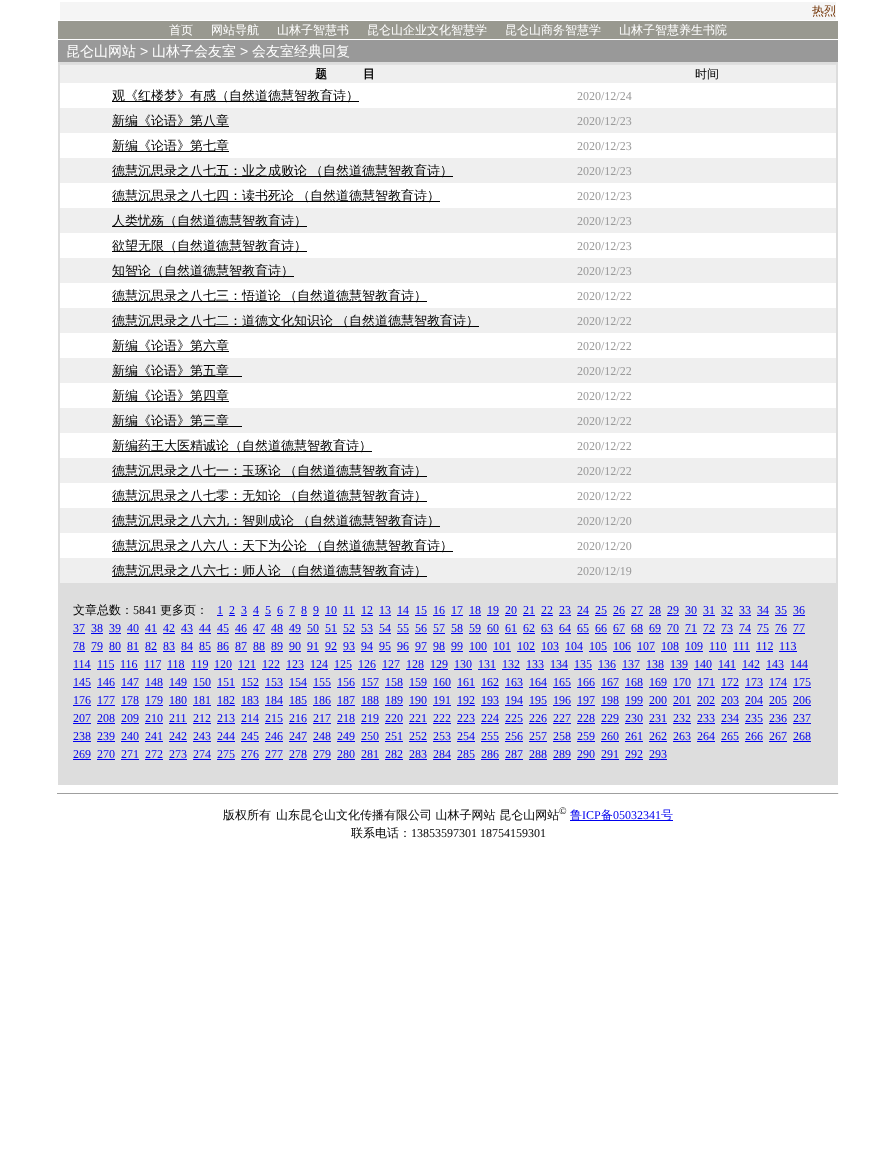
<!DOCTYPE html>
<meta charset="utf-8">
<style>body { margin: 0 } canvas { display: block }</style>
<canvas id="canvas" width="896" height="1163"></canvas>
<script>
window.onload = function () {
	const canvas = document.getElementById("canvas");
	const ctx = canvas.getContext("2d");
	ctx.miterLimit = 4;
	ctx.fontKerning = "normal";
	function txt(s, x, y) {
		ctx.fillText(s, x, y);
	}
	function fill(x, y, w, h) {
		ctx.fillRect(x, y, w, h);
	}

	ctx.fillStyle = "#FFFFFF";
	fill(0, 0, 896, 1163);
	ctx.fillStyle = "#F5F5F5";
	fill(60, 2, 776, 18);
	ctx.fillStyle = "#999990";
	fill(58, 21, 780, 18);
	ctx.fillStyle = "#999999";
	fill(58, 40, 780, 22);
	ctx.fillStyle = "#DDDDDD";
	fill(58, 62, 780, 723);
	ctx.fillStyle = "#EFEFEF";
	fill(60, 65, 776, 518);
	ctx.fillStyle = "#E0E0E0";
	fill(60, 64, 776, 1);
	ctx.fillStyle = "#FFFFFF";
	fill(60, 83, 776, 25);
	ctx.fillStyle = "#000000";
	fill(112, 101, 247, 1);
	fill(112, 126, 117, 1);
	ctx.fillStyle = "#FFFFFF";
	fill(60, 133, 776, 25);
	ctx.fillStyle = "#000000";
	fill(112, 151, 117, 1);
	fill(112, 176, 341, 1);
	ctx.fillStyle = "#FFFFFF";
	fill(60, 183, 776, 25);
	ctx.fillStyle = "#000000";
	fill(112, 201, 328, 1);
	fill(112, 226, 195, 1);
	ctx.fillStyle = "#FFFFFF";
	fill(60, 233, 776, 25);
	ctx.fillStyle = "#000000";
	fill(112, 251, 195, 1);
	fill(112, 276, 182, 1);
	ctx.fillStyle = "#FFFFFF";
	fill(60, 283, 776, 25);
	ctx.fillStyle = "#000000";
	fill(112, 301, 315, 1);
	fill(112, 326, 367, 1);
	ctx.fillStyle = "#FFFFFF";
	fill(60, 333, 776, 25);
	ctx.fillStyle = "#000000";
	fill(112, 351, 117, 1);
	fill(112, 376, 130, 1);
	ctx.fillStyle = "#FFFFFF";
	fill(60, 383, 776, 25);
	ctx.fillStyle = "#000000";
	fill(112, 401, 117, 1);
	fill(112, 426, 130, 1);
	ctx.fillStyle = "#FFFFFF";
	fill(60, 433, 776, 25);
	ctx.fillStyle = "#000000";
	fill(112, 451, 260, 1);
	fill(112, 476, 315, 1);
	ctx.fillStyle = "#FFFFFF";
	fill(60, 483, 776, 25);
	ctx.fillStyle = "#000000";
	fill(112, 501, 315, 1);
	fill(112, 526, 328, 1);
	ctx.fillStyle = "#FFFFFF";
	fill(60, 533, 776, 25);
	ctx.fillStyle = "#000000";
	fill(112, 551, 341, 1);
	fill(112, 576, 315, 1);
	ctx.fillStyle = "#0000EE";
	fill(217, 615, 6, 1);
	fill(229, 615, 6, 1);
	fill(241, 615, 6, 1);
	fill(253, 615, 6, 1);
	fill(265, 615, 6, 1);
	fill(277, 615, 6, 1);
	fill(289, 615, 6, 1);
	fill(301, 615, 6, 1);
	fill(313, 615, 6, 1);
	fill(325, 615, 12, 1);
	fill(343, 615, 12, 1);
	fill(361, 615, 12, 1);
	fill(379, 615, 12, 1);
	fill(397, 615, 12, 1);
	fill(415, 615, 12, 1);
	fill(433, 615, 12, 1);
	fill(451, 615, 12, 1);
	fill(469, 615, 12, 1);
	fill(487, 615, 12, 1);
	fill(505, 615, 12, 1);
	fill(523, 615, 12, 1);
	fill(541, 615, 12, 1);
	fill(559, 615, 12, 1);
	fill(577, 615, 12, 1);
	fill(595, 615, 12, 1);
	fill(613, 615, 12, 1);
	fill(631, 615, 12, 1);
	fill(649, 615, 12, 1);
	fill(667, 615, 12, 1);
	fill(685, 615, 12, 1);
	fill(703, 615, 12, 1);
	fill(721, 615, 12, 1);
	fill(739, 615, 12, 1);
	fill(757, 615, 12, 1);
	fill(775, 615, 12, 1);
	fill(793, 615, 12, 1);
	fill(73, 633, 12, 1);
	fill(91, 633, 12, 1);
	fill(109, 633, 12, 1);
	fill(127, 633, 12, 1);
	fill(145, 633, 12, 1);
	fill(163, 633, 12, 1);
	fill(181, 633, 12, 1);
	fill(199, 633, 12, 1);
	fill(217, 633, 12, 1);
	fill(235, 633, 12, 1);
	fill(253, 633, 12, 1);
	fill(271, 633, 12, 1);
	fill(289, 633, 12, 1);
	fill(307, 633, 12, 1);
	fill(325, 633, 12, 1);
	fill(343, 633, 12, 1);
	fill(361, 633, 12, 1);
	fill(379, 633, 12, 1);
	fill(397, 633, 12, 1);
	fill(415, 633, 12, 1);
	fill(433, 633, 12, 1);
	fill(451, 633, 12, 1);
	fill(469, 633, 12, 1);
	fill(487, 633, 12, 1);
	fill(505, 633, 12, 1);
	fill(523, 633, 12, 1);
	fill(541, 633, 12, 1);
	fill(559, 633, 12, 1);
	fill(577, 633, 12, 1);
	fill(595, 633, 12, 1);
	fill(613, 633, 12, 1);
	fill(631, 633, 12, 1);
	fill(649, 633, 12, 1);
	fill(667, 633, 12, 1);
	fill(685, 633, 12, 1);
	fill(703, 633, 12, 1);
	fill(721, 633, 12, 1);
	fill(739, 633, 12, 1);
	fill(757, 633, 12, 1);
	fill(775, 633, 12, 1);
	fill(793, 633, 12, 1);
	fill(73, 651, 12, 1);
	fill(91, 651, 12, 1);
	fill(109, 651, 12, 1);
	fill(127, 651, 12, 1);
	fill(145, 651, 12, 1);
	fill(163, 651, 12, 1);
	fill(181, 651, 12, 1);
	fill(199, 651, 12, 1);
	fill(217, 651, 12, 1);
	fill(235, 651, 12, 1);
	fill(253, 651, 12, 1);
	fill(271, 651, 12, 1);
	fill(289, 651, 12, 1);
	fill(307, 651, 12, 1);
	fill(325, 651, 12, 1);
	fill(343, 651, 12, 1);
	fill(361, 651, 12, 1);
	fill(379, 651, 12, 1);
	fill(397, 651, 12, 1);
	fill(415, 651, 12, 1);
	fill(433, 651, 12, 1);
	fill(451, 651, 12, 1);
	fill(469, 651, 18, 1);
	fill(493, 651, 18, 1);
	fill(517, 651, 18, 1);
	fill(541, 651, 18, 1);
	fill(565, 651, 18, 1);
	fill(589, 651, 18, 1);
	fill(613, 651, 18, 1);
	fill(637, 651, 18, 1);
	fill(661, 651, 18, 1);
	fill(685, 651, 18, 1);
	fill(709, 651, 18, 1);
	fill(733, 651, 17, 1);
	fill(756, 651, 17, 1);
	fill(779, 651, 18, 1);
	fill(73, 669, 18, 1);
	fill(97, 669, 17, 1);
	fill(120, 669, 18, 1);
	fill(144, 669, 17, 1);
	fill(167, 669, 18, 1);
	fill(191, 669, 17, 1);
	fill(214, 669, 18, 1);
	fill(238, 669, 18, 1);
	fill(262, 669, 18, 1);
	fill(286, 669, 18, 1);
	fill(310, 669, 18, 1);
	fill(334, 669, 18, 1);
	fill(358, 669, 18, 1);
	fill(382, 669, 18, 1);
	fill(406, 669, 18, 1);
	fill(430, 669, 18, 1);
	fill(454, 669, 18, 1);
	fill(478, 669, 18, 1);
	fill(502, 669, 18, 1);
	fill(526, 669, 18, 1);
	fill(550, 669, 18, 1);
	fill(574, 669, 18, 1);
	fill(598, 669, 18, 1);
	fill(622, 669, 18, 1);
	fill(646, 669, 18, 1);
	fill(670, 669, 18, 1);
	fill(694, 669, 18, 1);
	fill(718, 669, 18, 1);
	fill(742, 669, 18, 1);
	fill(766, 669, 18, 1);
	fill(790, 669, 18, 1);
	fill(73, 687, 18, 1);
	fill(97, 687, 18, 1);
	fill(121, 687, 18, 1);
	fill(145, 687, 18, 1);
	fill(169, 687, 18, 1);
	fill(193, 687, 18, 1);
	fill(217, 687, 18, 1);
	fill(241, 687, 18, 1);
	fill(265, 687, 18, 1);
	fill(289, 687, 18, 1);
	fill(313, 687, 18, 1);
	fill(337, 687, 18, 1);
	fill(361, 687, 18, 1);
	fill(385, 687, 18, 1);
	fill(409, 687, 18, 1);
	fill(433, 687, 18, 1);
	fill(457, 687, 18, 1);
	fill(481, 687, 18, 1);
	fill(505, 687, 18, 1);
	fill(529, 687, 18, 1);
	fill(553, 687, 18, 1);
	fill(577, 687, 18, 1);
	fill(601, 687, 18, 1);
	fill(625, 687, 18, 1);
	fill(649, 687, 18, 1);
	fill(673, 687, 18, 1);
	fill(697, 687, 18, 1);
	fill(721, 687, 18, 1);
	fill(745, 687, 18, 1);
	fill(769, 687, 18, 1);
	fill(793, 687, 18, 1);
	fill(73, 705, 18, 1);
	fill(97, 705, 18, 1);
	fill(121, 705, 18, 1);
	fill(145, 705, 18, 1);
	fill(169, 705, 18, 1);
	fill(193, 705, 18, 1);
	fill(217, 705, 18, 1);
	fill(241, 705, 18, 1);
	fill(265, 705, 18, 1);
	fill(289, 705, 18, 1);
	fill(313, 705, 18, 1);
	fill(337, 705, 18, 1);
	fill(361, 705, 18, 1);
	fill(385, 705, 18, 1);
	fill(409, 705, 18, 1);
	fill(433, 705, 18, 1);
	fill(457, 705, 18, 1);
	fill(481, 705, 18, 1);
	fill(505, 705, 18, 1);
	fill(529, 705, 18, 1);
	fill(553, 705, 18, 1);
	fill(577, 705, 18, 1);
	fill(601, 705, 18, 1);
	fill(625, 705, 18, 1);
	fill(649, 705, 18, 1);
	fill(673, 705, 18, 1);
	fill(697, 705, 18, 1);
	fill(721, 705, 18, 1);
	fill(745, 705, 18, 1);
	fill(769, 705, 18, 1);
	fill(793, 705, 18, 1);
	fill(73, 723, 18, 1);
	fill(97, 723, 18, 1);
	fill(121, 723, 18, 1);
	fill(145, 723, 18, 1);
	fill(169, 723, 18, 1);
	fill(193, 723, 18, 1);
	fill(217, 723, 18, 1);
	fill(241, 723, 18, 1);
	fill(265, 723, 18, 1);
	fill(289, 723, 18, 1);
	fill(313, 723, 18, 1);
	fill(337, 723, 18, 1);
	fill(361, 723, 18, 1);
	fill(385, 723, 18, 1);
	fill(409, 723, 18, 1);
	fill(433, 723, 18, 1);
	fill(457, 723, 18, 1);
	fill(481, 723, 18, 1);
	fill(505, 723, 18, 1);
	fill(529, 723, 18, 1);
	fill(553, 723, 18, 1);
	fill(577, 723, 18, 1);
	fill(601, 723, 18, 1);
	fill(625, 723, 18, 1);
	fill(649, 723, 18, 1);
	fill(673, 723, 18, 1);
	fill(697, 723, 18, 1);
	fill(721, 723, 18, 1);
	fill(745, 723, 18, 1);
	fill(769, 723, 18, 1);
	fill(793, 723, 18, 1);
	fill(73, 741, 18, 1);
	fill(97, 741, 18, 1);
	fill(121, 741, 18, 1);
	fill(145, 741, 18, 1);
	fill(169, 741, 18, 1);
	fill(193, 741, 18, 1);
	fill(217, 741, 18, 1);
	fill(241, 741, 18, 1);
	fill(265, 741, 18, 1);
	fill(289, 741, 18, 1);
	fill(313, 741, 18, 1);
	fill(337, 741, 18, 1);
	fill(361, 741, 18, 1);
	fill(385, 741, 18, 1);
	fill(409, 741, 18, 1);
	fill(433, 741, 18, 1);
	fill(457, 741, 18, 1);
	fill(481, 741, 18, 1);
	fill(505, 741, 18, 1);
	fill(529, 741, 18, 1);
	fill(553, 741, 18, 1);
	fill(577, 741, 18, 1);
	fill(601, 741, 18, 1);
	fill(625, 741, 18, 1);
	fill(649, 741, 18, 1);
	fill(673, 741, 18, 1);
	fill(697, 741, 18, 1);
	fill(721, 741, 18, 1);
	fill(745, 741, 18, 1);
	fill(769, 741, 18, 1);
	fill(793, 741, 18, 1);
	fill(73, 759, 18, 1);
	fill(97, 759, 18, 1);
	fill(121, 759, 18, 1);
	fill(145, 759, 18, 1);
	fill(169, 759, 18, 1);
	fill(193, 759, 18, 1);
	fill(217, 759, 18, 1);
	fill(241, 759, 18, 1);
	fill(265, 759, 18, 1);
	fill(289, 759, 18, 1);
	fill(313, 759, 18, 1);
	fill(337, 759, 18, 1);
	fill(361, 759, 18, 1);
	fill(385, 759, 18, 1);
	fill(409, 759, 18, 1);
	fill(433, 759, 18, 1);
	fill(457, 759, 18, 1);
	fill(481, 759, 18, 1);
	fill(505, 759, 18, 1);
	fill(529, 759, 18, 1);
	fill(553, 759, 18, 1);
	fill(577, 759, 18, 1);
	fill(601, 759, 18, 1);
	fill(625, 759, 18, 1);
	fill(649, 759, 18, 1);
	ctx.fillStyle = "#9F9F9F";
	fill(57, 793, 782, 1);
	ctx.fillStyle = "#EEEEEE";
	fill(838, 793, 1, 1);
	ctx.fillStyle = "#0000EE";
	fill(570, 820, 103, 1);
	ctx.font = "500 12px WenQuanYi Zen Hei";
	ctx.fillStyle = "#703000";
	txt("热烈", 812, 15);
	ctx.fillStyle = "#FFFFFF";
	txt("首页", 169, 34);
	txt("网站导航", 211, 34);
	txt("山林子智慧书", 277, 34);
	txt("昆仑山企业文化智慧学", 367, 34);
	txt("昆仑山商务智慧学", 505, 34);
	txt("山林子智慧养生书院", 619, 34);
	ctx.font = "500 14px WenQuanYi Zen Hei";
	txt("昆仑山网站", 66, 56);
	ctx.font = "14px Liberation Sans";
	txt(">", 140, 56);
	ctx.font = "500 14px WenQuanYi Zen Hei";
	txt("山林子会友室", 152, 56);
	ctx.font = "14px Liberation Sans";
	txt(">", 240, 56);
	ctx.font = "500 14px WenQuanYi Zen Hei";
	txt("会友室经典回复", 252, 56);
	ctx.font = "bold 12px WenQuanYi Zen Hei";
	ctx.fillStyle = "#000000";
	txt("题　　　目", 315, 78);
	ctx.font = "500 12px WenQuanYi Zen Hei";
	txt("时间", 695, 78);
	ctx.font = "500 13px WenQuanYi Zen Hei";
	txt("观《红楼梦》有感（自然道德慧智教育诗）", 112, 100);
	ctx.font = "12px Liberation Serif";
	ctx.fillStyle = "#999999";
	txt("2020/12/24", 577, 100);
	ctx.font = "500 13px WenQuanYi Zen Hei";
	ctx.fillStyle = "#000000";
	txt("新编《论语》第八章", 112, 125);
	ctx.font = "12px Liberation Serif";
	ctx.fillStyle = "#999999";
	txt("2020/12/23", 577, 125);
	ctx.font = "500 13px WenQuanYi Zen Hei";
	ctx.fillStyle = "#000000";
	txt("新编《论语》第七章", 112, 150);
	ctx.font = "12px Liberation Serif";
	ctx.fillStyle = "#999999";
	txt("2020/12/23", 577, 150);
	ctx.font = "500 13px WenQuanYi Zen Hei";
	ctx.fillStyle = "#000000";
	txt("德慧沉思录之八七五：业之成败论", 112, 175);
	txt("（自然道德慧智教育诗）", 310, 175);
	ctx.font = "12px Liberation Serif";
	ctx.fillStyle = "#999999";
	txt("2020/12/23", 577, 175);
	ctx.font = "500 13px WenQuanYi Zen Hei";
	ctx.fillStyle = "#000000";
	txt("德慧沉思录之八七四：读书死论", 112, 200);
	txt("（自然道德慧智教育诗）", 297, 200);
	ctx.font = "12px Liberation Serif";
	ctx.fillStyle = "#999999";
	txt("2020/12/23", 577, 200);
	ctx.font = "500 13px WenQuanYi Zen Hei";
	ctx.fillStyle = "#000000";
	txt("人类忧殇（自然道德慧智教育诗）", 112, 225);
	ctx.font = "12px Liberation Serif";
	ctx.fillStyle = "#999999";
	txt("2020/12/23", 577, 225);
	ctx.font = "500 13px WenQuanYi Zen Hei";
	ctx.fillStyle = "#000000";
	txt("欲望无限（自然道德慧智教育诗）", 112, 250);
	ctx.font = "12px Liberation Serif";
	ctx.fillStyle = "#999999";
	txt("2020/12/23", 577, 250);
	ctx.font = "500 13px WenQuanYi Zen Hei";
	ctx.fillStyle = "#000000";
	txt("知智论（自然道德慧智教育诗）", 112, 275);
	ctx.font = "12px Liberation Serif";
	ctx.fillStyle = "#999999";
	txt("2020/12/23", 577, 275);
	ctx.font = "500 13px WenQuanYi Zen Hei";
	ctx.fillStyle = "#000000";
	txt("德慧沉思录之八七三：悟道论", 112, 300);
	txt("（自然道德慧智教育诗）", 284, 300);
	ctx.font = "12px Liberation Serif";
	ctx.fillStyle = "#999999";
	txt("2020/12/22", 577, 300);
	ctx.font = "500 13px WenQuanYi Zen Hei";
	ctx.fillStyle = "#000000";
	txt("德慧沉思录之八七二：道德文化知识论", 112, 325);
	txt("（自然道德慧智教育诗）", 336, 325);
	ctx.font = "12px Liberation Serif";
	ctx.fillStyle = "#999999";
	txt("2020/12/22", 577, 325);
	ctx.font = "500 13px WenQuanYi Zen Hei";
	ctx.fillStyle = "#000000";
	txt("新编《论语》第六章", 112, 350);
	ctx.font = "12px Liberation Serif";
	ctx.fillStyle = "#999999";
	txt("2020/12/22", 577, 350);
	ctx.font = "500 13px WenQuanYi Zen Hei";
	ctx.fillStyle = "#000000";
	txt("新编《论语》第五章", 112, 375);
	ctx.font = "12px Liberation Serif";
	ctx.fillStyle = "#999999";
	txt("2020/12/22", 577, 375);
	ctx.font = "500 13px WenQuanYi Zen Hei";
	ctx.fillStyle = "#000000";
	txt("新编《论语》第四章", 112, 400);
	ctx.font = "12px Liberation Serif";
	ctx.fillStyle = "#999999";
	txt("2020/12/22", 577, 400);
	ctx.font = "500 13px WenQuanYi Zen Hei";
	ctx.fillStyle = "#000000";
	txt("新编《论语》第三章", 112, 425);
	ctx.font = "12px Liberation Serif";
	ctx.fillStyle = "#999999";
	txt("2020/12/22", 577, 425);
	ctx.font = "500 13px WenQuanYi Zen Hei";
	ctx.fillStyle = "#000000";
	txt("新编药王大医精诚论（自然道德慧智教育诗）", 112, 450);
	ctx.font = "12px Liberation Serif";
	ctx.fillStyle = "#999999";
	txt("2020/12/22", 577, 450);
	ctx.font = "500 13px WenQuanYi Zen Hei";
	ctx.fillStyle = "#000000";
	txt("德慧沉思录之八七一：玉琢论", 112, 475);
	txt("（自然道德慧智教育诗）", 284, 475);
	ctx.font = "12px Liberation Serif";
	ctx.fillStyle = "#999999";
	txt("2020/12/22", 577, 475);
	ctx.font = "500 13px WenQuanYi Zen Hei";
	ctx.fillStyle = "#000000";
	txt("德慧沉思录之八七零：无知论", 112, 500);
	txt("（自然道德慧智教育诗）", 284, 500);
	ctx.font = "12px Liberation Serif";
	ctx.fillStyle = "#999999";
	txt("2020/12/22", 577, 500);
	ctx.font = "500 13px WenQuanYi Zen Hei";
	ctx.fillStyle = "#000000";
	txt("德慧沉思录之八六九：智则成论", 112, 525);
	txt("（自然道德慧智教育诗）", 297, 525);
	ctx.font = "12px Liberation Serif";
	ctx.fillStyle = "#999999";
	txt("2020/12/20", 577, 525);
	ctx.font = "500 13px WenQuanYi Zen Hei";
	ctx.fillStyle = "#000000";
	txt("德慧沉思录之八六八：天下为公论", 112, 550);
	txt("（自然道德慧智教育诗）", 310, 550);
	ctx.font = "12px Liberation Serif";
	ctx.fillStyle = "#999999";
	txt("2020/12/20", 577, 550);
	ctx.font = "500 13px WenQuanYi Zen Hei";
	ctx.fillStyle = "#000000";
	txt("德慧沉思录之八六七：师人论", 112, 575);
	txt("（自然道德慧智教育诗）", 284, 575);
	ctx.font = "12px Liberation Serif";
	ctx.fillStyle = "#999999";
	txt("2020/12/19", 577, 575);
	ctx.font = "500 12px WenQuanYi Zen Hei";
	ctx.fillStyle = "#000000";
	txt("文章总数：", 73, 614);
	ctx.font = "12px Liberation Serif";
	txt("5841", 133, 614);
	ctx.font = "500 12px WenQuanYi Zen Hei";
	txt("更多页：", 160, 614);
	ctx.font = "12px Liberation Serif";
	ctx.fillStyle = "#0000EE";
	txt("1", 217, 614);
	txt("2", 229, 614);
	txt("3", 241, 614);
	txt("4", 253, 614);
	txt("5", 265, 614);
	txt("6", 277, 614);
	txt("7", 289, 614);
	txt("8", 301, 614);
	txt("9", 313, 614);
	txt("10", 325, 614);
	txt("11", 343, 614);
	txt("12", 361, 614);
	txt("13", 379, 614);
	txt("14", 397, 614);
	txt("15", 415, 614);
	txt("16", 433, 614);
	txt("17", 451, 614);
	txt("18", 469, 614);
	txt("19", 487, 614);
	txt("20", 505, 614);
	txt("21", 523, 614);
	txt("22", 541, 614);
	txt("23", 559, 614);
	txt("24", 577, 614);
	txt("25", 595, 614);
	txt("26", 613, 614);
	txt("27", 631, 614);
	txt("28", 649, 614);
	txt("29", 667, 614);
	txt("30", 685, 614);
	txt("31", 703, 614);
	txt("32", 721, 614);
	txt("33", 739, 614);
	txt("34", 757, 614);
	txt("35", 775, 614);
	txt("36", 793, 614);
	txt("37", 73, 632);
	txt("38", 91, 632);
	txt("39", 109, 632);
	txt("40", 127, 632);
	txt("41", 145, 632);
	txt("42", 163, 632);
	txt("43", 181, 632);
	txt("44", 199, 632);
	txt("45", 217, 632);
	txt("46", 235, 632);
	txt("47", 253, 632);
	txt("48", 271, 632);
	txt("49", 289, 632);
	txt("50", 307, 632);
	txt("51", 325, 632);
	txt("52", 343, 632);
	txt("53", 361, 632);
	txt("54", 379, 632);
	txt("55", 397, 632);
	txt("56", 415, 632);
	txt("57", 433, 632);
	txt("58", 451, 632);
	txt("59", 469, 632);
	txt("60", 487, 632);
	txt("61", 505, 632);
	txt("62", 523, 632);
	txt("63", 541, 632);
	txt("64", 559, 632);
	txt("65", 577, 632);
	txt("66", 595, 632);
	txt("67", 613, 632);
	txt("68", 631, 632);
	txt("69", 649, 632);
	txt("70", 667, 632);
	txt("71", 685, 632);
	txt("72", 703, 632);
	txt("73", 721, 632);
	txt("74", 739, 632);
	txt("75", 757, 632);
	txt("76", 775, 632);
	txt("77", 793, 632);
	txt("78", 73, 650);
	txt("79", 91, 650);
	txt("80", 109, 650);
	txt("81", 127, 650);
	txt("82", 145, 650);
	txt("83", 163, 650);
	txt("84", 181, 650);
	txt("85", 199, 650);
	txt("86", 217, 650);
	txt("87", 235, 650);
	txt("88", 253, 650);
	txt("89", 271, 650);
	txt("90", 289, 650);
	txt("91", 307, 650);
	txt("92", 325, 650);
	txt("93", 343, 650);
	txt("94", 361, 650);
	txt("95", 379, 650);
	txt("96", 397, 650);
	txt("97", 415, 650);
	txt("98", 433, 650);
	txt("99", 451, 650);
	txt("100", 469, 650);
	txt("101", 493, 650);
	txt("102", 517, 650);
	txt("103", 541, 650);
	txt("104", 565, 650);
	txt("105", 589, 650);
	txt("106", 613, 650);
	txt("107", 637, 650);
	txt("108", 661, 650);
	txt("109", 685, 650);
	txt("110", 709, 650);
	txt("111", 733, 650);
	txt("112", 756, 650);
	txt("113", 779, 650);
	txt("114", 73, 668);
	txt("115", 97, 668);
	txt("116", 120, 668);
	txt("117", 144, 668);
	txt("118", 167, 668);
	txt("119", 191, 668);
	txt("120", 214, 668);
	txt("121", 238, 668);
	txt("122", 262, 668);
	txt("123", 286, 668);
	txt("124", 310, 668);
	txt("125", 334, 668);
	txt("126", 358, 668);
	txt("127", 382, 668);
	txt("128", 406, 668);
	txt("129", 430, 668);
	txt("130", 454, 668);
	txt("131", 478, 668);
	txt("132", 502, 668);
	txt("133", 526, 668);
	txt("134", 550, 668);
	txt("135", 574, 668);
	txt("136", 598, 668);
	txt("137", 622, 668);
	txt("138", 646, 668);
	txt("139", 670, 668);
	txt("140", 694, 668);
	txt("141", 718, 668);
	txt("142", 742, 668);
	txt("143", 766, 668);
	txt("144", 790, 668);
	txt("145", 73, 686);
	txt("146", 97, 686);
	txt("147", 121, 686);
	txt("148", 145, 686);
	txt("149", 169, 686);
	txt("150", 193, 686);
	txt("151", 217, 686);
	txt("152", 241, 686);
	txt("153", 265, 686);
	txt("154", 289, 686);
	txt("155", 313, 686);
	txt("156", 337, 686);
	txt("157", 361, 686);
	txt("158", 385, 686);
	txt("159", 409, 686);
	txt("160", 433, 686);
	txt("161", 457, 686);
	txt("162", 481, 686);
	txt("163", 505, 686);
	txt("164", 529, 686);
	txt("165", 553, 686);
	txt("166", 577, 686);
	txt("167", 601, 686);
	txt("168", 625, 686);
	txt("169", 649, 686);
	txt("170", 673, 686);
	txt("171", 697, 686);
	txt("172", 721, 686);
	txt("173", 745, 686);
	txt("174", 769, 686);
	txt("175", 793, 686);
	txt("176", 73, 704);
	txt("177", 97, 704);
	txt("178", 121, 704);
	txt("179", 145, 704);
	txt("180", 169, 704);
	txt("181", 193, 704);
	txt("182", 217, 704);
	txt("183", 241, 704);
	txt("184", 265, 704);
	txt("185", 289, 704);
	txt("186", 313, 704);
	txt("187", 337, 704);
	txt("188", 361, 704);
	txt("189", 385, 704);
	txt("190", 409, 704);
	txt("191", 433, 704);
	txt("192", 457, 704);
	txt("193", 481, 704);
	txt("194", 505, 704);
	txt("195", 529, 704);
	txt("196", 553, 704);
	txt("197", 577, 704);
	txt("198", 601, 704);
	txt("199", 625, 704);
	txt("200", 649, 704);
	txt("201", 673, 704);
	txt("202", 697, 704);
	txt("203", 721, 704);
	txt("204", 745, 704);
	txt("205", 769, 704);
	txt("206", 793, 704);
	txt("207", 73, 722);
	txt("208", 97, 722);
	txt("209", 121, 722);
	txt("210", 145, 722);
	txt("211", 169, 722);
	txt("212", 193, 722);
	txt("213", 217, 722);
	txt("214", 241, 722);
	txt("215", 265, 722);
	txt("216", 289, 722);
	txt("217", 313, 722);
	txt("218", 337, 722);
	txt("219", 361, 722);
	txt("220", 385, 722);
	txt("221", 409, 722);
	txt("222", 433, 722);
	txt("223", 457, 722);
	txt("224", 481, 722);
	txt("225", 505, 722);
	txt("226", 529, 722);
	txt("227", 553, 722);
	txt("228", 577, 722);
	txt("229", 601, 722);
	txt("230", 625, 722);
	txt("231", 649, 722);
	txt("232", 673, 722);
	txt("233", 697, 722);
	txt("234", 721, 722);
	txt("235", 745, 722);
	txt("236", 769, 722);
	txt("237", 793, 722);
	txt("238", 73, 740);
	txt("239", 97, 740);
	txt("240", 121, 740);
	txt("241", 145, 740);
	txt("242", 169, 740);
	txt("243", 193, 740);
	txt("244", 217, 740);
	txt("245", 241, 740);
	txt("246", 265, 740);
	txt("247", 289, 740);
	txt("248", 313, 740);
	txt("249", 337, 740);
	txt("250", 361, 740);
	txt("251", 385, 740);
	txt("252", 409, 740);
	txt("253", 433, 740);
	txt("254", 457, 740);
	txt("255", 481, 740);
	txt("256", 505, 740);
	txt("257", 529, 740);
	txt("258", 553, 740);
	txt("259", 577, 740);
	txt("260", 601, 740);
	txt("261", 625, 740);
	txt("262", 649, 740);
	txt("263", 673, 740);
	txt("264", 697, 740);
	txt("265", 721, 740);
	txt("266", 745, 740);
	txt("267", 769, 740);
	txt("268", 793, 740);
	txt("269", 73, 758);
	txt("270", 97, 758);
	txt("271", 121, 758);
	txt("272", 145, 758);
	txt("273", 169, 758);
	txt("274", 193, 758);
	txt("275", 217, 758);
	txt("276", 241, 758);
	txt("277", 265, 758);
	txt("278", 289, 758);
	txt("279", 313, 758);
	txt("280", 337, 758);
	txt("281", 361, 758);
	txt("282", 385, 758);
	txt("283", 409, 758);
	txt("284", 433, 758);
	txt("285", 457, 758);
	txt("286", 481, 758);
	txt("287", 505, 758);
	txt("288", 529, 758);
	txt("289", 553, 758);
	txt("290", 577, 758);
	txt("291", 601, 758);
	txt("292", 625, 758);
	txt("293", 649, 758);
	ctx.font = "500 12px WenQuanYi Zen Hei";
	ctx.fillStyle = "#000000";
	txt("版权所有", 223, 819);
	txt("山东昆仑山文化传播有限公司 山林子网站 昆仑山网站", 276, 819);
	ctx.font = "10px Liberation Serif";
	txt("©", 559, 814);
	ctx.font = "500 12px WenQuanYi Zen Hei";
	ctx.fillStyle = "#0000EE";
	txt("鲁", 570, 819);
	ctx.font = "12px Liberation Serif";
	txt("ICP", 582, 819);
	ctx.font = "500 12px WenQuanYi Zen Hei";
	txt("备", 601, 819);
	ctx.font = "12px Liberation Serif";
	txt("05032341", 613, 819);
	ctx.font = "500 12px WenQuanYi Zen Hei";
	txt("号", 661, 819);
	ctx.fillStyle = "#000000";
	txt("联系电话：", 351, 837);
	ctx.font = "12px Liberation Serif";
	txt("13853597301 18754159301", 411, 837);
};
</script>
